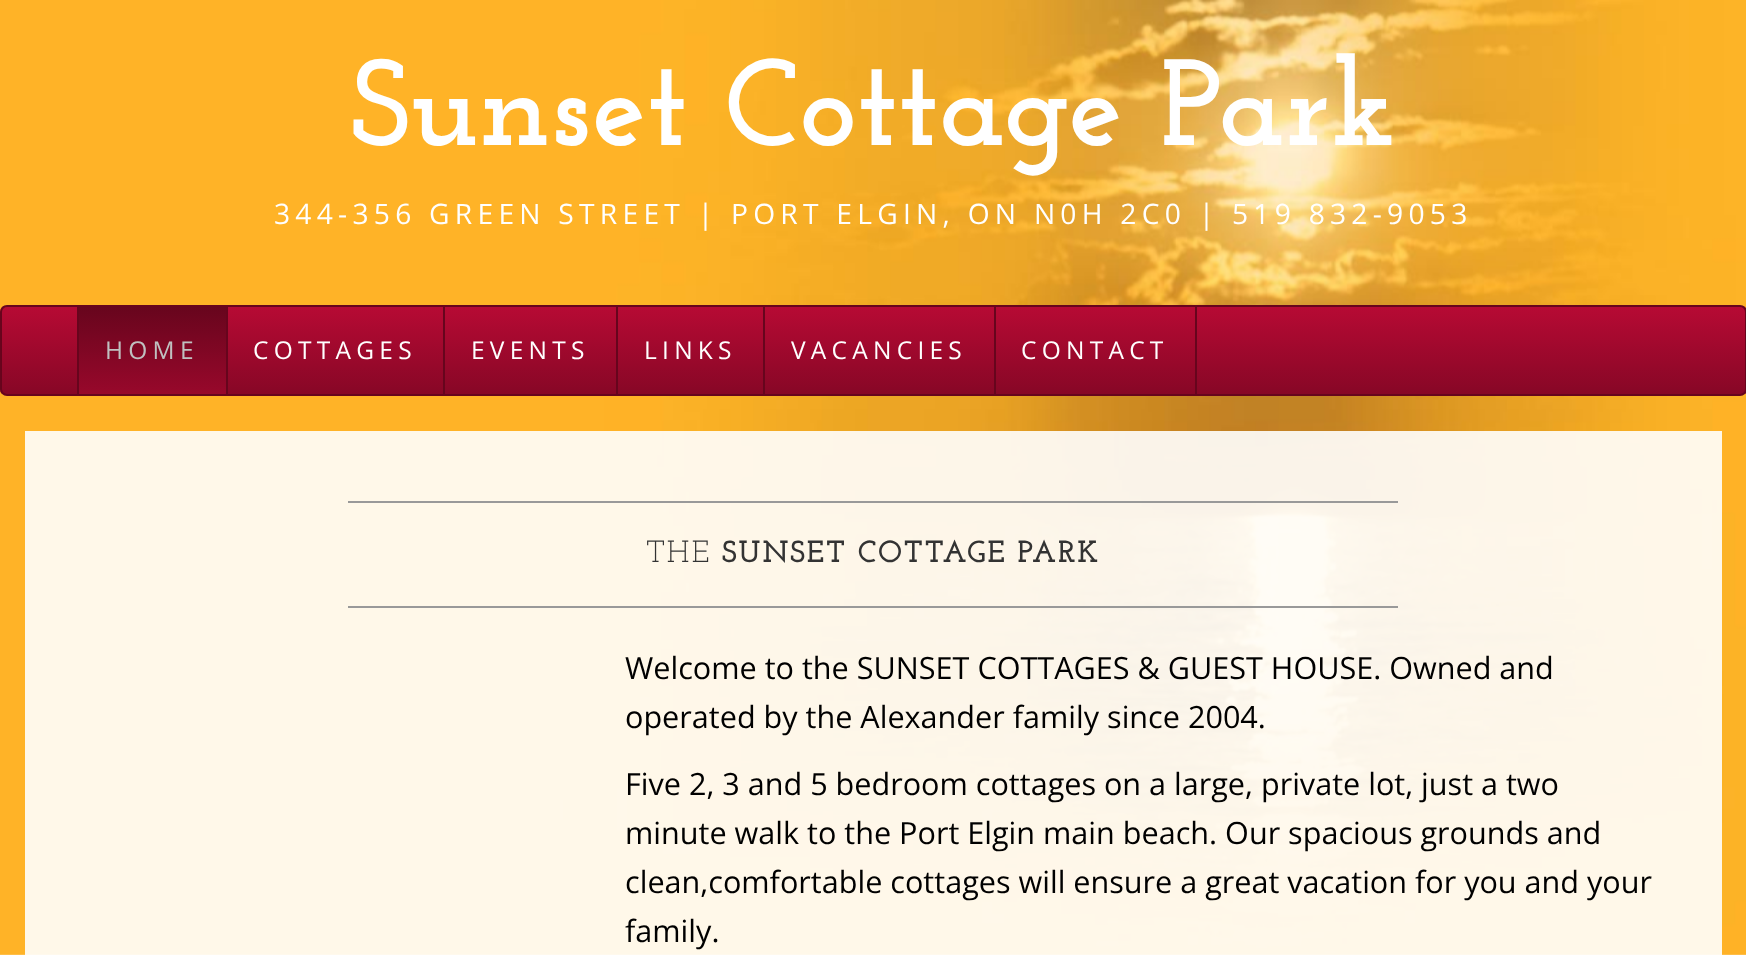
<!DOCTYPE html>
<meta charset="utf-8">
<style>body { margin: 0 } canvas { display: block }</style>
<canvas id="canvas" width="1746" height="955"></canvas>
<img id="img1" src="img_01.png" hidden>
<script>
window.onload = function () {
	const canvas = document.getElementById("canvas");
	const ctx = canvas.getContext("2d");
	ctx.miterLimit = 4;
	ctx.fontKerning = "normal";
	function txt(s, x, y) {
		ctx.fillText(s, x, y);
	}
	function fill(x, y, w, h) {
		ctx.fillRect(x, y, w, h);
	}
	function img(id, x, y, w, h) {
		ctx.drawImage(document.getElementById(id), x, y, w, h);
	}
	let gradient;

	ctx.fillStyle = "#FFFFFF";
	fill(0, 0, 1746, 955);
	img("img1", 0, 0, 1746, 955);
	ctx.save();
	ctx.beginPath();
	ctx.roundRect(0, 305, 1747, 91, 7);
	ctx.clip();
	gradient = ctx.createLinearGradient(873, 306, 873, 394);
	gradient.addColorStop(0, "#B70A34");
	gradient.addColorStop(1, "#870726");
	ctx.fillStyle = gradient;
	fill(0, 306, 1746, 88);
	ctx.restore();
	ctx.beginPath();
	ctx.roundRect(1, 306, 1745, 89, 6);
	ctx.strokeStyle = "#67051D";
	ctx.lineWidth = 2;
	ctx.stroke();
	gradient = ctx.createLinearGradient(152, 306, 152, 394);
	gradient.addColorStop(0, "#67051D");
	gradient.addColorStop(1, "#98082B");
	ctx.fillStyle = gradient;
	fill(79, 307, 147, 87);
	ctx.fillStyle = "#67051D";
	fill(77, 306, 2, 88);
	fill(226, 306, 2, 88);
	fill(443, 306, 2, 88);
	fill(616, 306, 2, 88);
	fill(763, 306, 2, 88);
	fill(1195, 306, 2, 88);
	fill(994, 306, 2, 88);
	ctx.fillStyle = "rgba(255, 255, 255, 0.9)";
	fill(25, 431, 1697, 524);
	ctx.fillStyle = "#999999";
	fill(348, 501, 1050, 2);
	fill(348, 606, 1050, 2);
	ctx.font = "bold 122.5px Josefin Slab";
	ctx.fillStyle = "#FFFFFF";
	txt("Sunset Cottage Park", 351, 145);
	ctx.letterSpacing = "5.25px";
	ctx.font = "28.2px Open Sans";
	txt("344-356 GREEN STREET | PORT ELGIN, ON N0H 2C0 | 519 832-9053", 274, 224);
	ctx.font = "24.5px Open Sans";
	ctx.fillStyle = "#C0C0C0";
	txt("HOME", 105, 359);
	ctx.fillStyle = "#FFFFFF";
	txt("COTTAGES", 253, 359);
	txt("EVENTS", 471, 359);
	txt("LINKS", 644, 359);
	txt("VACANCIES", 791, 359);
	txt("CONTACT", 1021, 359);
	ctx.letterSpacing = "1.75px";
	ctx.font = "30.6px Josefin Slab";
	ctx.fillStyle = "#333333";
	txt("THE", 646, 562);
	ctx.font = "bold 30.6px Josefin Slab";
	txt("SUNSET COTTAGE PARK", 722, 562);
	ctx.letterSpacing = "0px";
	ctx.font = "30.6px Open Sans";
	ctx.fillStyle = "#000000";
	txt("Welcome to the SUNSET COTTAGES & GUEST HOUSE. Owned and", 625, 679);
	txt("operated by the Alexander family since 2004.", 625, 728);
	txt("Five 2, 3 and 5 bedroom cottages on a large, private lot, just a two", 625, 795);
	txt("minute walk to the Port Elgin main beach. Our spacious grounds and", 625, 844);
	txt("clean,comfortable cottages will ensure a great vacation for you and your", 625, 893);
	txt("family.", 625, 942);
};
</script>
